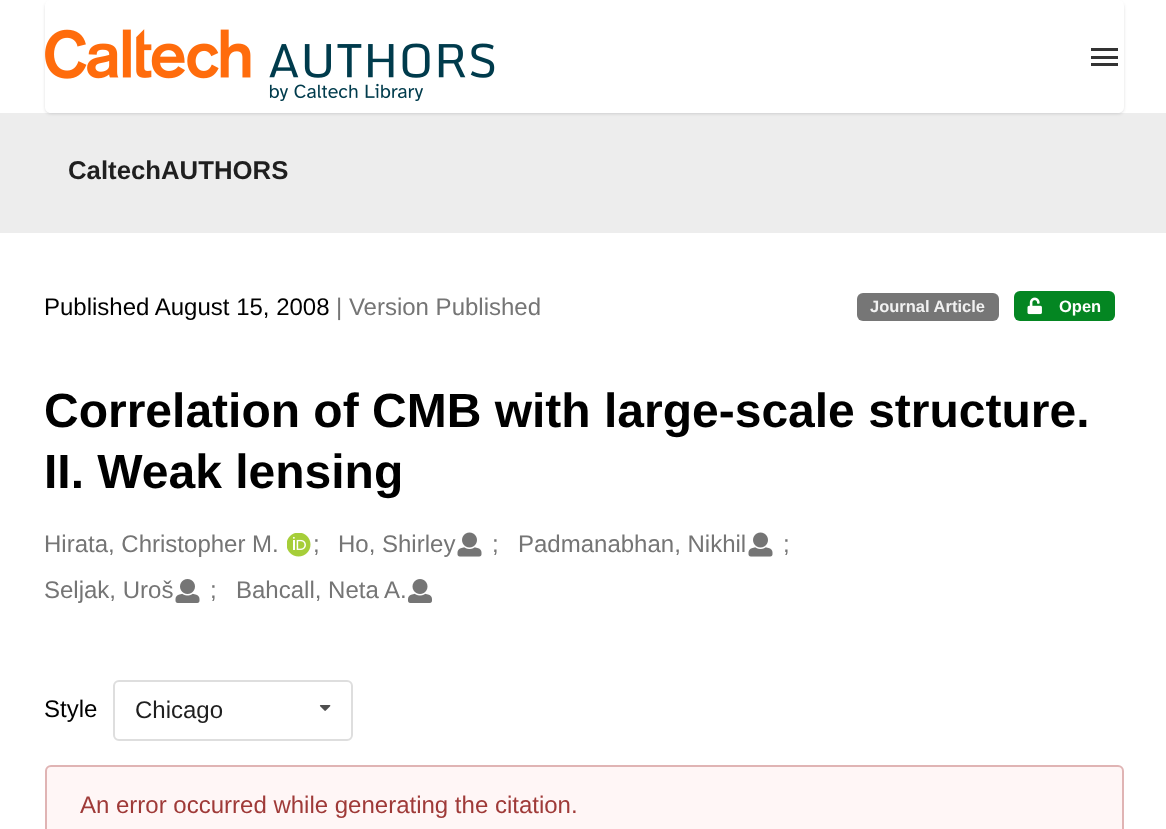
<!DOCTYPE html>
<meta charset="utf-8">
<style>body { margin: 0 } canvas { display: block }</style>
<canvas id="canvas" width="1166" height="829"></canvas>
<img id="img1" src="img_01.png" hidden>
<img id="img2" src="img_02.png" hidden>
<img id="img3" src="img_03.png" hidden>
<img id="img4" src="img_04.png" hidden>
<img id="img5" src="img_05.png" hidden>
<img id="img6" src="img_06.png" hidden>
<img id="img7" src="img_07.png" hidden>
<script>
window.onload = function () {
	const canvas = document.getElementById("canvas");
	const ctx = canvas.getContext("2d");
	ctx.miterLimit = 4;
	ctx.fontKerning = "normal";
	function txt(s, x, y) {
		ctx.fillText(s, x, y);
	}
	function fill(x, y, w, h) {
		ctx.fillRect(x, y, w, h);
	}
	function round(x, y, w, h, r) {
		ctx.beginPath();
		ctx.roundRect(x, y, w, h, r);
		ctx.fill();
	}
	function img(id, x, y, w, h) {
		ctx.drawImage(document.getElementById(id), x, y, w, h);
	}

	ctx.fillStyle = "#FFFFFF";
	fill(0, 0, 1166, 829);
	ctx.fillStyle = "#EDEDED";
	fill(0, 113, 1166, 120);
	ctx.save();
	ctx.beginPath();
	ctx.moveTo(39, 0);
	ctx.lineTo(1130, 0);
	ctx.lineTo(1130, 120);
	ctx.lineTo(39, 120);
	ctx.closePath();
	ctx.moveTo(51, 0);
	ctx.lineTo(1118, 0);
	ctx.bezierCurveTo(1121.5, 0, 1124, 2.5, 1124, 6);
	ctx.lineTo(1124, 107);
	ctx.bezierCurveTo(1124, 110.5, 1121.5, 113, 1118, 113);
	ctx.lineTo(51, 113);
	ctx.bezierCurveTo(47.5, 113, 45, 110.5, 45, 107);
	ctx.lineTo(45, 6);
	ctx.bezierCurveTo(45, 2.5, 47.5, 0, 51, 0);
	ctx.closePath();
	ctx.clip("evenodd");
	ctx.fillStyle = "rgba(34, 36, 38, 0.15)";
	ctx.filter = "blur(1.5px)";
	ctx.beginPath();
	ctx.roundRect(45, 2, 1079, 112, 6);
	ctx.fill();
	ctx.filter = "none";
	ctx.restore();
	img("img1", 45, 29, 450, 72);
	ctx.fillStyle = "#333333";
	fill(1091, 56, 27, 3);
	fill(1091, 48, 27, 3);
	fill(1091, 63, 27, 3);
	ctx.fillStyle = "#767676";
	round(857, 293, 142, 28, 6);
	ctx.fillStyle = "#048622";
	round(1014, 291, 101, 30, 6);
	img("img2", 1027, 297, 15, 18);
	img("img3", 287, 533, 24, 24);
	img("img4", 457, 532, 25, 25);
	img("img4", 748, 532, 25, 25);
	img("img5", 175, 579, 25, 24);
	img("img6", 408, 579, 24, 24);
	ctx.beginPath();
	ctx.roundRect(114, 681, 238, 59, 5);
	ctx.strokeStyle = "#DEDEDE";
	ctx.lineWidth = 2;
	ctx.stroke();
	img("img7", 319, 705, 12, 6);
	ctx.fillStyle = "#FFF6F6";
	ctx.beginPath();
	ctx.roundRect(46, 766, 1077, 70, 5);
	ctx.fill();
	ctx.strokeStyle = "#E0B4B4";
	ctx.stroke();
	ctx.font = "bold 25.75px Liberation Sans";
	ctx.fillStyle = "#1F1F1F";
	txt("CaltechAUTHORS", 68, 179);
	ctx.font = "24px Liberation Sans";
	ctx.fillStyle = "#000000";
	txt("Published August 15, 2008", 44, 315);
	ctx.fillStyle = "#757575";
	txt("| Version Published", 336, 315);
	ctx.font = "bold 16.5px Liberation Sans";
	ctx.fillStyle = "#F1F1F1";
	txt("Journal Article", 870, 312);
	ctx.fillStyle = "#FFFFFF";
	txt("Open", 1059, 312);
	ctx.font = "bold 48px Liberation Sans";
	ctx.fillStyle = "#000000";
	txt("Correlation of CMB with large-scale structure.", 44, 427);
	txt("II. Weak lensing", 44, 488);
	ctx.font = "24px Liberation Sans";
	ctx.fillStyle = "#757575";
	txt("Hirata, Christopher M.", 44, 552);
	txt(";", 313, 552);
	txt("Ho, Shirley", 338, 552);
	txt(";", 492, 552);
	txt("Padmanabhan, Nikhil", 518, 552);
	txt(";", 783, 552);
	txt("Seljak, Uroš", 44, 598);
	txt(";", 210, 598);
	txt("Bahcall, Neta A.", 236, 598);
	ctx.fillStyle = "#000000";
	txt("Style", 44, 717);
	ctx.fillStyle = "#1F1F1F";
	txt("Chicago", 135, 718);
	ctx.fillStyle = "#9F3A38";
	txt("An error occurred while generating the citation.", 80, 813);
};
</script>
